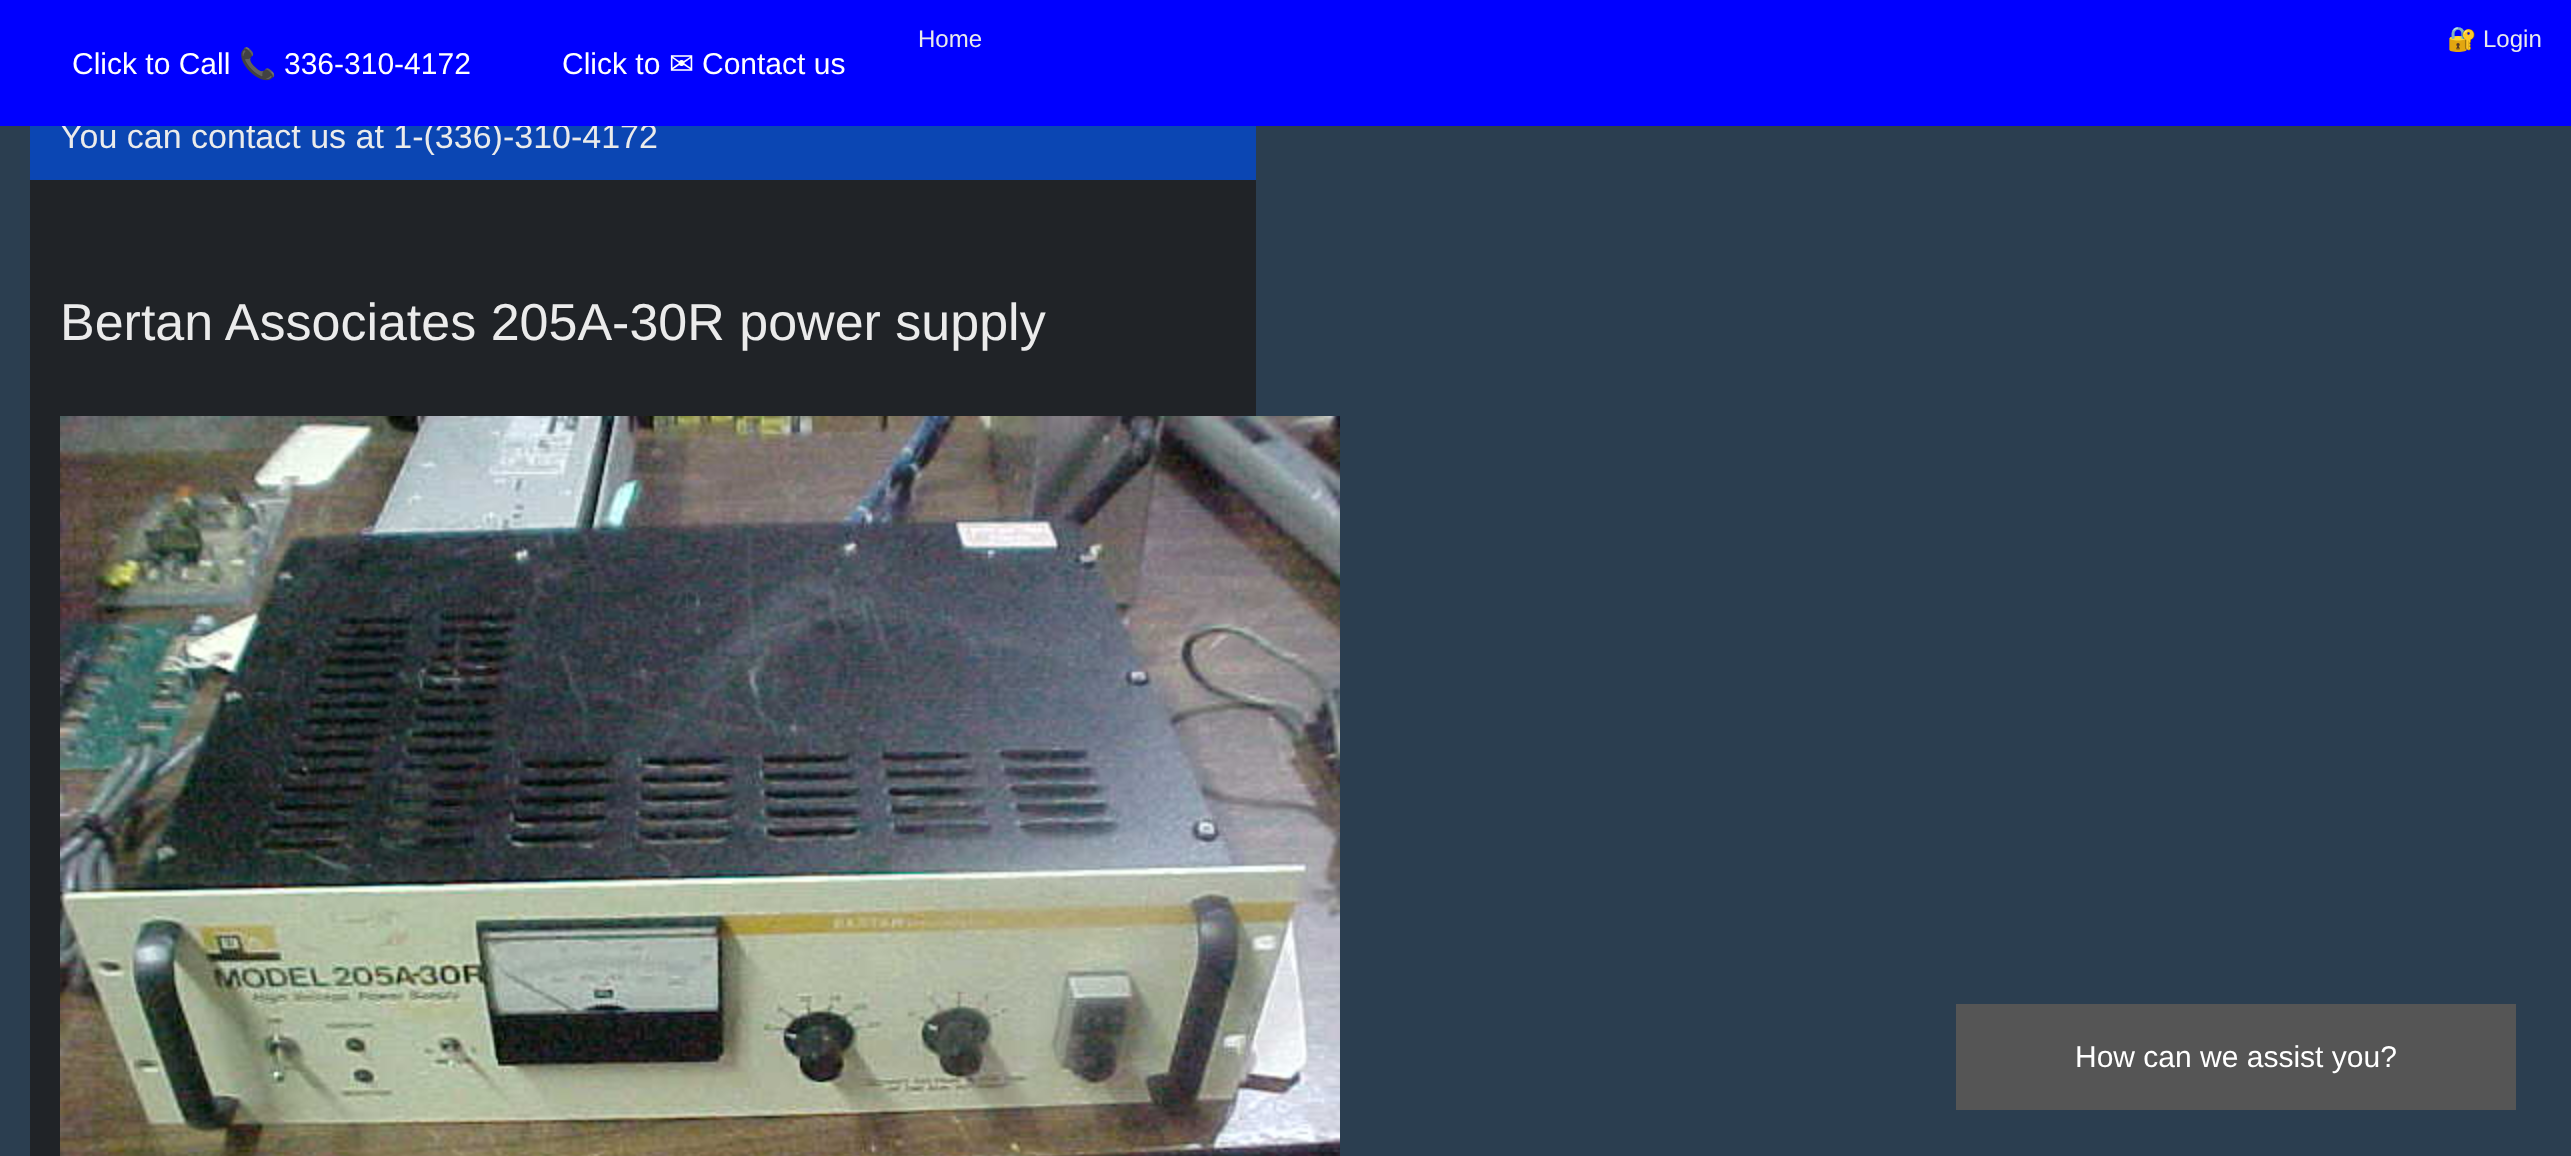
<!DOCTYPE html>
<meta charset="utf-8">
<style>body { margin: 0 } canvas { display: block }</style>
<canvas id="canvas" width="2571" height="1156"></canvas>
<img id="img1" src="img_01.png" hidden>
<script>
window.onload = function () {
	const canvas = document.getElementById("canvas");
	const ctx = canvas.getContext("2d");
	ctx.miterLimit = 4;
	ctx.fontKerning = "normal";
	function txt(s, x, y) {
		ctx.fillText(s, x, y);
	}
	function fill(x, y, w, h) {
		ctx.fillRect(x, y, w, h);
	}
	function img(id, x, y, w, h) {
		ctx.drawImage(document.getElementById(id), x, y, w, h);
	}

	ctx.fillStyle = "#2B3E50";
	fill(0, 0, 2571, 1156);
	ctx.fillStyle = "#202327";
	fill(30, 180, 1226, 976);
	ctx.fillStyle = "#0B46B3";
	fill(30, 126, 1226, 54);
	img("img1", 60, 416, 1280, 740);
	ctx.fillStyle = "#555555";
	fill(1956, 1004, 560, 106);
	ctx.font = "34px Liberation Sans";
	ctx.fillStyle = "#EBEBEB";
	txt("You can contact us at 1-(336)-310-4172", 60, 148);
	ctx.fillStyle = "#0000FF";
	fill(0, 0, 2571, 126);
	ctx.font = "24px Liberation Sans";
	ctx.fillStyle = "#EBEBEB";
	txt("Login", 2483, 47);
	ctx.font = "24px Noto Color Emoji";
	txt("🔐", 2447, 47);
	ctx.font = "24px Liberation Sans";
	txt("Home", 918, 47);
	ctx.font = "30px Liberation Sans";
	ctx.fillStyle = "#FFFFFF";
	txt("Contact us", 702, 74);
	ctx.font = "30px DejaVu Sans";
	txt("✉", 669, 74);
	ctx.font = "30px Liberation Sans";
	txt("Click to", 562, 74);
	txt("336-310-4172", 284, 74);
	ctx.font = "30px Noto Color Emoji";
	txt("📞", 239, 74);
	ctx.font = "30px Liberation Sans";
	txt("Click to Call", 72, 74);
	ctx.font = "52px Liberation Sans";
	ctx.fillStyle = "#EBEBEB";
	txt("Bertan Associates 205A-30R power supply", 60, 340);
	ctx.font = "30px Liberation Sans";
	ctx.fillStyle = "#FFFFFF";
	txt("How can we assist you?", 2075, 1067);
};
</script>
